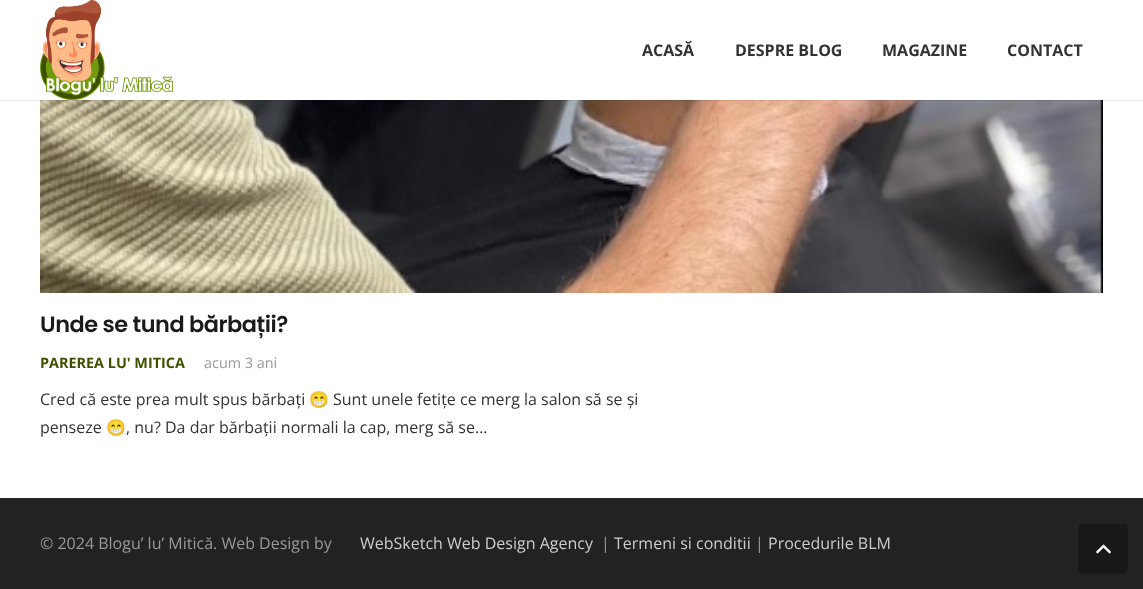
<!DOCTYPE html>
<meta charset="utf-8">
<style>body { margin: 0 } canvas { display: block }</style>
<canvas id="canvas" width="1143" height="589"></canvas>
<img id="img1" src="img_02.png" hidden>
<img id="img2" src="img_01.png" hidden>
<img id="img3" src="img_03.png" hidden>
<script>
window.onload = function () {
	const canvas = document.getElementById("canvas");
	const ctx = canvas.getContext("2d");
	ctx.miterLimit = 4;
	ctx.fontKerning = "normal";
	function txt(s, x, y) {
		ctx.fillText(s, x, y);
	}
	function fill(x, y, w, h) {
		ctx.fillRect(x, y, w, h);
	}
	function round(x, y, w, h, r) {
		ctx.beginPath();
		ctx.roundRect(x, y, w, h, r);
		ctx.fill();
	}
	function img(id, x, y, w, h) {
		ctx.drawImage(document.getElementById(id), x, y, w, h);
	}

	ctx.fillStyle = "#222222";
	fill(0, 0, 1143, 589);
	ctx.fillStyle = "#FFFFFF";
	fill(0, 0, 1143, 498);
	img("img1", 40, 100, 1063, 193);
	ctx.fillStyle = "rgba(0, 0, 0, 0.08)";
	fill(0, 100, 1143, 1);
	img("img2", 40, 0, 133, 100);
	ctx.fillStyle = "#181818";
	round(1078, 524, 50, 50, 5);
	img("img3", 1096, 544, 15, 10);
	ctx.font = "bold 16px Open Sans";
	ctx.fillStyle = "#333333";
	txt("ACASĂ", 642, 56);
	txt("DESPRE BLOG", 735, 56);
	txt("MAGAZINE", 882, 56);
	txt("CONTACT", 1007, 56);
	ctx.letterSpacing = "-0.45px";
	ctx.font = "600 22.4px Poppins";
	ctx.fillStyle = "#1A1A1A";
	txt("Unde se tund bărbații?", 40, 332);
	ctx.letterSpacing = "0px";
	ctx.font = "bold 14.4px Open Sans";
	ctx.fillStyle = "#3D5100";
	txt("PAREREA LU' MITICA", 40, 368);
	ctx.font = "14.4px Open Sans";
	ctx.fillStyle = "#999999";
	txt("acum 3 ani", 204, 368);
	ctx.font = "16px Open Sans";
	ctx.fillStyle = "#333333";
	txt("Cred că este prea mult spus bărbați", 40, 405);
	ctx.font = "16px Noto Color Emoji";
	txt("😁", 309, 405);
	ctx.font = "16px Open Sans";
	txt("Sunt unele fetițe ce merg la salon să se și", 333, 405);
	txt("penseze", 40, 433);
	ctx.font = "16px Noto Color Emoji";
	txt("😁", 106, 433);
	ctx.font = "16px Open Sans";
	txt(", nu? Da dar bărbații normali la cap, merg să se…", 126, 433);
	ctx.fillStyle = "#999999";
	txt("© 2024 Blogu’ lu’ Mitică. Web Design by", 40, 549);
	ctx.fillStyle = "#CCCCCC";
	txt("WebSketch Web Design Agency", 360, 549);
	ctx.fillStyle = "#999999";
	txt("|", 601, 549);
	ctx.fillStyle = "#CCCCCC";
	txt("Termeni si conditii", 614, 549);
	ctx.fillStyle = "#999999";
	txt("|", 755, 549);
	ctx.fillStyle = "#CCCCCC";
	txt("Procedurile BLM", 768, 549);
};
</script>
